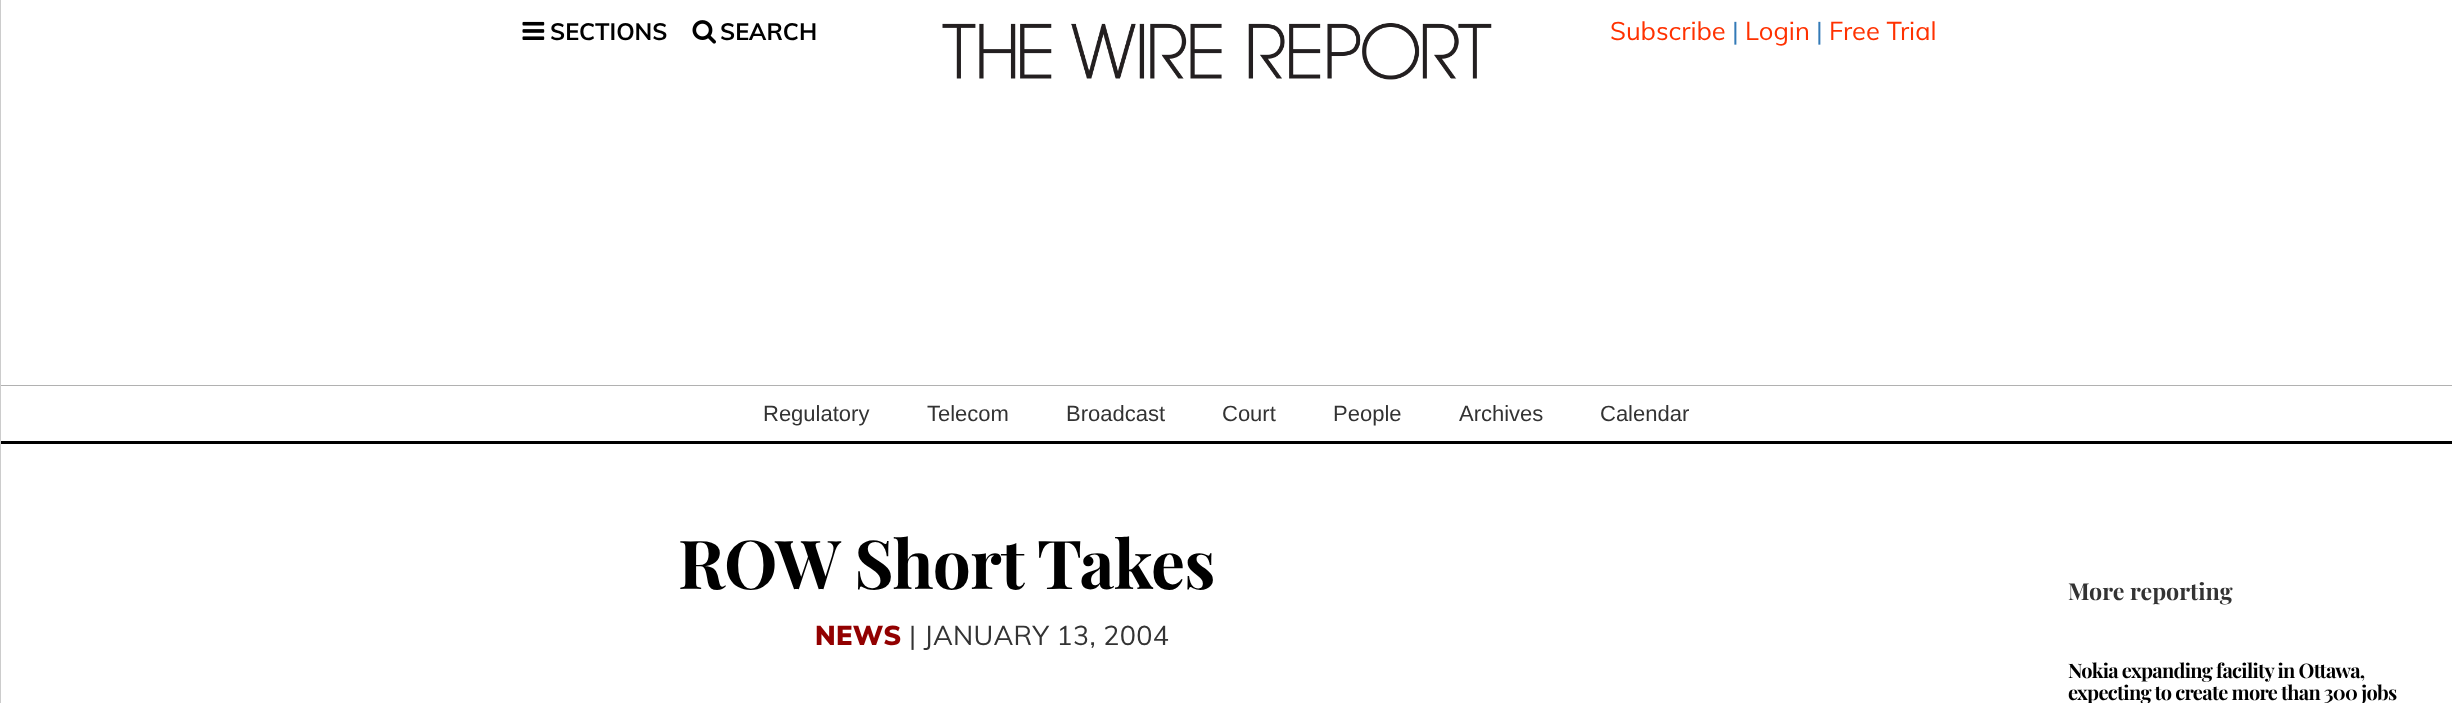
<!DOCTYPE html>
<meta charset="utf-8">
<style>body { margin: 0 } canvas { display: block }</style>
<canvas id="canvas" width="2452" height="703"></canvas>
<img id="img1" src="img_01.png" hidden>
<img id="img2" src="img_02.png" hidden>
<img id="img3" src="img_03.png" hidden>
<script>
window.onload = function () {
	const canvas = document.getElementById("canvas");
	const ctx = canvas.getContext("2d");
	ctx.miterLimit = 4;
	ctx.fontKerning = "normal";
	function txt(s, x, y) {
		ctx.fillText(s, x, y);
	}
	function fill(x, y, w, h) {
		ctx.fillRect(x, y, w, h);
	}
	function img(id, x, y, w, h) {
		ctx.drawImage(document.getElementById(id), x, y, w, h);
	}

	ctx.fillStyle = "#FFFFFF";
	fill(0, 0, 2452, 703);
	ctx.fillStyle = "#B1B1B1";
	fill(0, 385, 2452, 1);
	ctx.fillStyle = "#000000";
	fill(0, 441, 2452, 3);
	ctx.fillStyle = "#CCCCCC";
	fill(0, 0, 1, 703);
	img("img1", 522, 21, 23, 19);
	img("img2", 692, 20, 24, 24);
	img("img3", 942, 23, 550, 57);
	ctx.font = "bold 23.5px Muli";
	ctx.fillStyle = "#000000";
	txt("SECTIONS", 550, 40);
	txt("SEARCH", 720, 40);
	ctx.font = "25.5px Muli";
	ctx.fillStyle = "#FF3100";
	txt("Subscribe", 1610, 40);
	ctx.fillStyle = "#337AB7";
	txt("|", 1732, 40);
	ctx.fillStyle = "#FF3100";
	txt("Login", 1745, 40);
	ctx.fillStyle = "#337AB7";
	txt("|", 1816, 40);
	ctx.fillStyle = "#FF3100";
	txt("Free Trial", 1829, 40);
	ctx.font = "22px Liberation Sans";
	ctx.fillStyle = "#333333";
	txt("Regulatory", 763, 421);
	txt("Telecom", 927, 421);
	txt("Broadcast", 1066, 421);
	txt("Court", 1222, 421);
	txt("People", 1333, 421);
	txt("Archives", 1459, 421);
	txt("Calendar", 1600, 421);
	ctx.letterSpacing = "-0.75px";
	ctx.font = "bold 67.5px Playfair Display";
	ctx.fillStyle = "#000000";
	txt("ROW Short Takes", 678, 589);
	ctx.letterSpacing = "0.3px";
	ctx.font = "900 27px Muli";
	ctx.fillStyle = "#920000";
	txt("NEWS", 815, 645);
	ctx.font = "27px Muli";
	ctx.fillStyle = "#333333";
	txt("| JANUARY 13, 2004", 909, 645);
	ctx.letterSpacing = "0px";
	ctx.font = "bold 23.25px Playfair Display";
	txt("More reporting", 2068, 600);
	ctx.letterSpacing = "-0.7px";
	ctx.font = "bold 20px Playfair Display";
	ctx.fillStyle = "#000000";
	txt("Nokia expanding facility in Ottawa,", 2068, 678);
	txt("expecting to create more than 300 jobs", 2068, 700);
};
</script>
